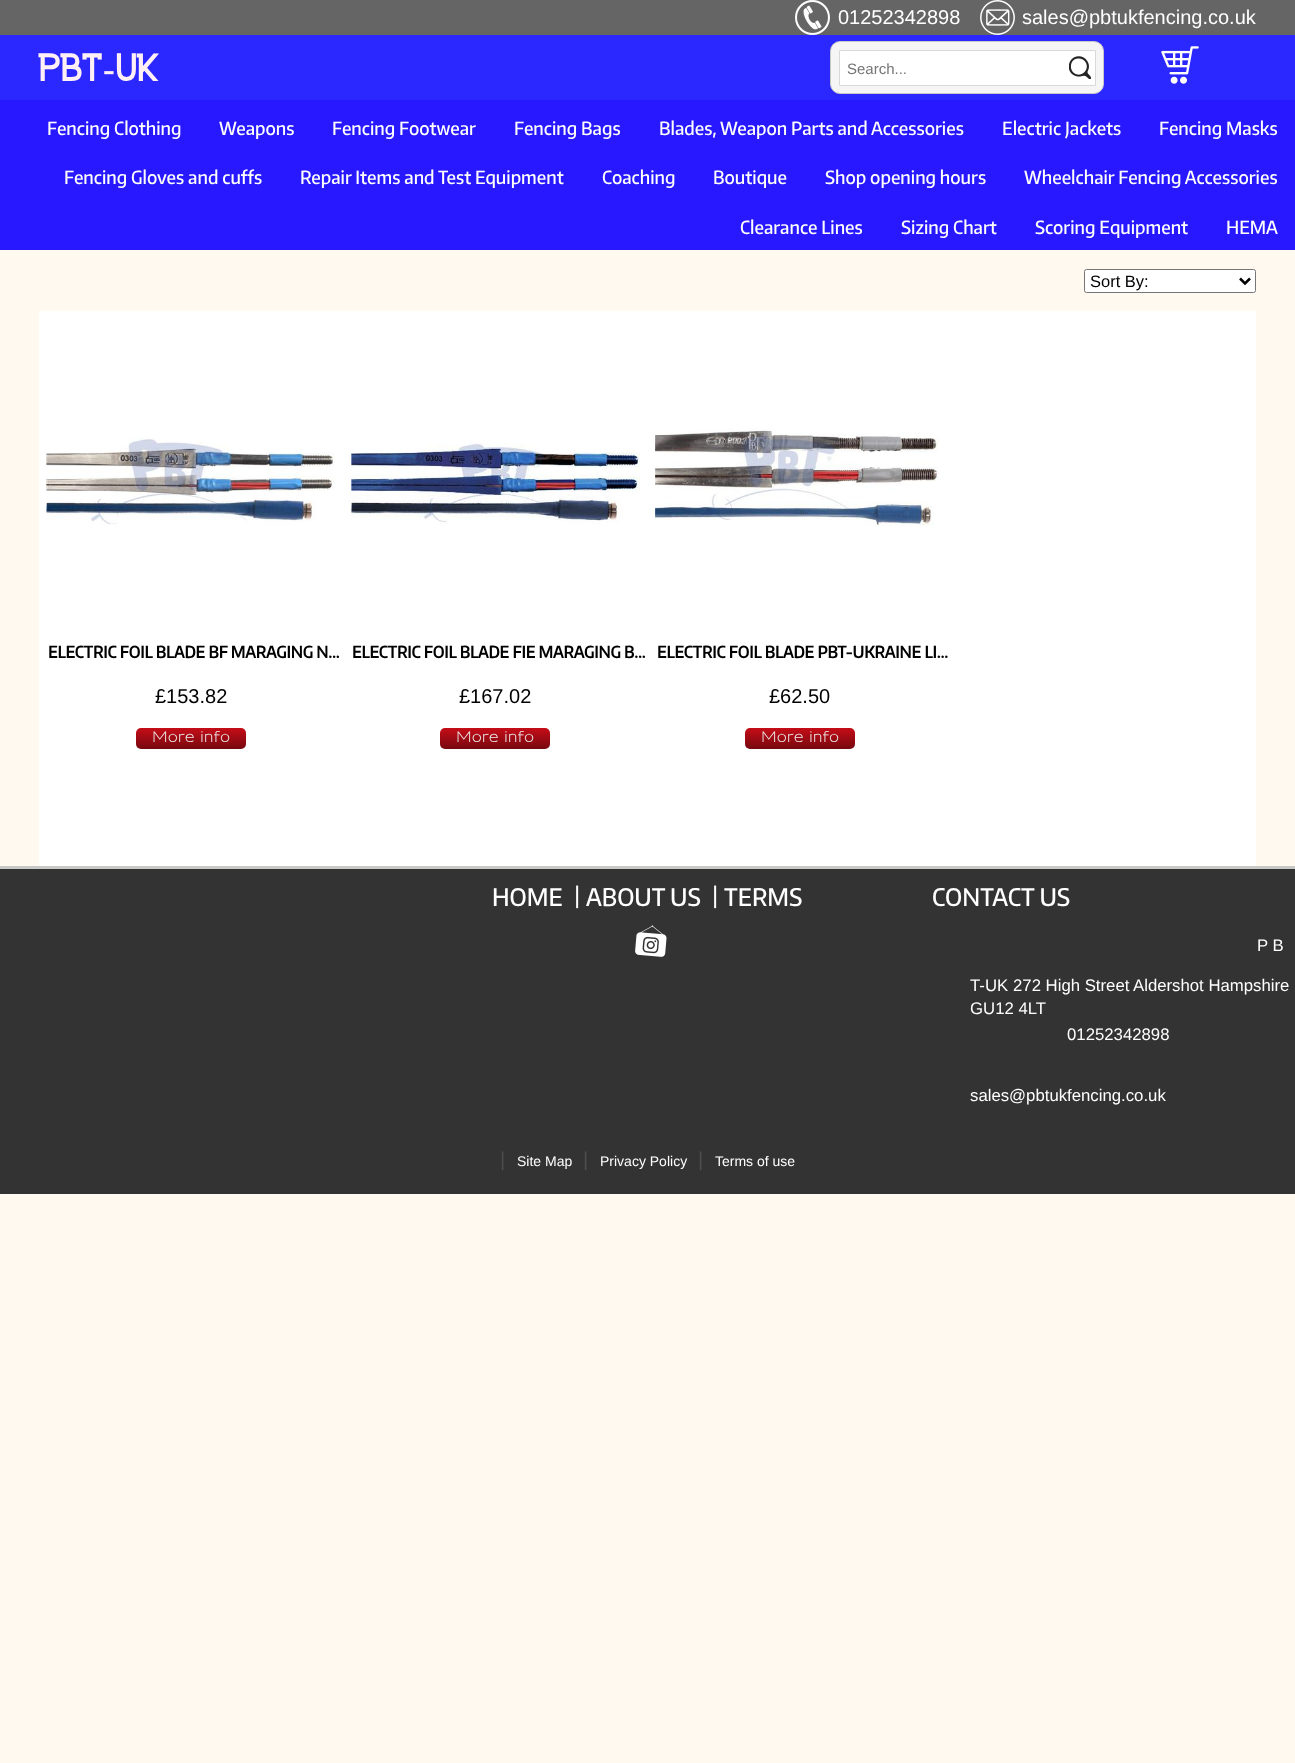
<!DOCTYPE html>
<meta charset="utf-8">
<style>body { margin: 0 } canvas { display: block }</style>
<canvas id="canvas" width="1295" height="1763"></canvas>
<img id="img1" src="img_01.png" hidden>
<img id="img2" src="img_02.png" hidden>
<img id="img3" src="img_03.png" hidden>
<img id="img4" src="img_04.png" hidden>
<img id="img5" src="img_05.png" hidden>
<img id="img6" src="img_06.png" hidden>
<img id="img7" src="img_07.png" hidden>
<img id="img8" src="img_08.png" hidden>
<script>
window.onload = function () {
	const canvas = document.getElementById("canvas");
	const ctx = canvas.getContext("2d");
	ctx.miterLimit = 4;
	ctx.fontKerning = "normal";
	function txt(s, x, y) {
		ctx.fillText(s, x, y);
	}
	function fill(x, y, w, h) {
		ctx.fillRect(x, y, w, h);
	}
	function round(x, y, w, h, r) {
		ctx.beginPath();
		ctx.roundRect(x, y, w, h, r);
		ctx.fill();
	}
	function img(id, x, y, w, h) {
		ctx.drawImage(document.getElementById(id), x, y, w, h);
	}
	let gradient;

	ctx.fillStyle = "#FFF9F0";
	fill(0, 0, 1295, 1763);
	ctx.fillStyle = "#2B27FF";
	fill(0, 35, 1295, 65);
	ctx.fillStyle = "#656565";
	fill(0, 0, 1295, 35);
	img("img1", 795, 0, 35, 35);
	img("img2", 980, 0, 35, 35);
	ctx.fillStyle = "#F5F5F5";
	ctx.beginPath();
	ctx.roundRect(830.5, 41.5, 273, 52, 9.5);
	ctx.fill();
	ctx.strokeStyle = "#C8C8C8";
	ctx.stroke();
	ctx.fillStyle = "#FFFFFF";
	ctx.beginPath();
	ctx.rect(839.5, 50.5, 256, 35);
	ctx.fill();
	ctx.strokeStyle = "#D9D9D9";
	ctx.stroke();
	img("img3", 1069, 56, 22, 23);
	img("img4", 1161, 46, 38, 38);
	ctx.fillStyle = "#2718FF";
	fill(0, 100, 1295, 150);
	ctx.fillStyle = "#FFFFFF";
	ctx.beginPath();
	ctx.roundRect(1084.5, 269.5, 171, 23, 2);
	ctx.fill();
	ctx.strokeStyle = "#767676";
	ctx.stroke();
	ctx.beginPath();
	ctx.moveTo(1240, 278.5);
	ctx.lineTo(1245, 283.5);
	ctx.lineTo(1250, 278.5);
	ctx.strokeStyle = "#000000";
	ctx.lineWidth = 2.5;
	ctx.stroke();
	fill(39, 311, 1217, 555);
	img("img5", 46, 436, 289, 89);
	gradient = ctx.createLinearGradient(191, 728, 191, 760);
	gradient.addColorStop(0, "#C50D18");
	gradient.addColorStop(1, "#4E0509");
	ctx.fillStyle = gradient;
	round(136, 728, 110, 21, 5);
	img("img6", 351, 443, 289, 82);
	gradient = ctx.createLinearGradient(495, 728, 495, 760);
	gradient.addColorStop(0, "#C50D18");
	gradient.addColorStop(1, "#4E0509");
	ctx.fillStyle = gradient;
	round(440, 728, 110, 21, 5);
	img("img7", 655, 428, 284, 99);
	gradient = ctx.createLinearGradient(800, 728, 800, 760);
	gradient.addColorStop(0, "#C50D18");
	gradient.addColorStop(1, "#4E0509");
	ctx.fillStyle = gradient;
	round(745, 728, 110, 21, 5);
	ctx.fillStyle = "#333333";
	fill(0, 869, 1295, 325);
	ctx.fillStyle = "#C8C9C7";
	fill(0, 866, 1295, 3);
	img("img8", 635, 925, 32, 32);
	ctx.font = "20px Liberation Sans";
	ctx.fillStyle = "#FFFFFF";
	txt("01252342898", 838, 24);
	txt("sales@pbtukfencing.co.uk", 1022, 24);
	ctx.font = "bold 35.5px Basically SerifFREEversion";
	ctx.fillStyle = "#FFF0F5";
	txt("PBT UK", 39, 81);
	ctx.font = "bold 35.5px Liberation Serif";
	txt("-", 103, 81);
	ctx.font = "15px Liberation Sans";
	ctx.fillStyle = "#757575";
	txt("Search...", 847, 74);
	ctx.font = "500 18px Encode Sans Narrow";
	ctx.fillStyle = "#FFFFFF";
	txt("Fencing Clothing", 47, 135);
	txt("Weapons", 219, 135);
	txt("Fencing Footwear", 332, 135);
	txt("Fencing Bags", 514, 135);
	txt("Blades, Weapon Parts and Accessories", 659, 135);
	txt("Electric Jackets", 1002, 135);
	txt("Fencing Masks", 1159, 135);
	txt("Fencing Gloves and cuffs", 64, 184);
	txt("Repair Items and Test Equipment", 300, 184);
	txt("Coaching", 602, 184);
	txt("Boutique", 713, 184);
	txt("Shop opening hours", 825, 184);
	txt("Wheelchair Fencing Accessories", 1024, 184);
	txt("Clearance Lines", 740, 234);
	txt("Sizing Chart", 901, 234);
	txt("Scoring Equipment", 1035, 234);
	txt("HEMA", 1226, 234);
	ctx.font = "16.5px Liberation Sans";
	ctx.fillStyle = "#000000";
	txt("Sort By:", 1090, 287);
	ctx.font = "bold 16px Encode Sans Narrow";
	txt("ELECTRIC FOIL BLADE BF MARAGING N…", 48, 658);
	ctx.font = "20px Liberation Sans";
	txt("£153.82", 155, 703);
	ctx.font = "500 15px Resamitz";
	ctx.fillStyle = "#EDEDED";
	txt("More info", 152, 742);
	ctx.font = "bold 16px Encode Sans Narrow";
	ctx.fillStyle = "#000000";
	txt("ELECTRIC FOIL BLADE FIE MARAGING B…", 352, 658);
	ctx.font = "20px Liberation Sans";
	txt("£167.02", 459, 703);
	ctx.font = "500 15px Resamitz";
	ctx.fillStyle = "#EDEDED";
	txt("More info", 456, 742);
	ctx.font = "bold 16px Encode Sans Narrow";
	ctx.fillStyle = "#000000";
	txt("ELECTRIC FOIL BLADE PBT-UKRAINE LI…", 657, 658);
	ctx.font = "20px Liberation Sans";
	txt("£62.50", 769, 703);
	ctx.font = "500 15px Resamitz";
	ctx.fillStyle = "#EDEDED";
	txt("More info", 761, 742);
	ctx.font = "500 24px Encode Sans Narrow";
	ctx.fillStyle = "#FFFFFF";
	txt("HOME", 492, 906);
	ctx.font = "24px Liberation Sans";
	txt("|", 574, 903);
	ctx.font = "500 24px Encode Sans Narrow";
	txt("ABOUT US", 586, 906);
	ctx.font = "24px Liberation Sans";
	txt("|", 712, 903);
	ctx.font = "500 24px Encode Sans Narrow";
	txt("TERMS", 724, 906);
	txt("CONTACT US", 932, 906);
	ctx.font = "16.75px Liberation Sans";
	txt("P B", 1257, 951);
	txt("T-UK", 970, 991);
	txt("272 High Street", 1013, 991);
	txt("Aldershot Hampshire", 1133, 991);
	txt("GU12 4LT", 970, 1014);
	txt("01252342898", 1067, 1040);
	txt("sales@pbtukfencing.co.uk", 970, 1101);
	ctx.font = "20px Liberation Sans";
	ctx.fillStyle = "#4D4E4D";
	txt("|", 500, 1166);
	ctx.font = "14px Liberation Sans";
	ctx.fillStyle = "#FFFFFF";
	txt("Site Map", 517, 1166);
	ctx.font = "20px Liberation Sans";
	ctx.fillStyle = "#4D4E4D";
	txt("|", 583, 1166);
	ctx.font = "14px Liberation Sans";
	ctx.fillStyle = "#FFFFFF";
	txt("Privacy Policy", 600, 1166);
	ctx.font = "20px Liberation Sans";
	ctx.fillStyle = "#4D4E4D";
	txt("|", 698, 1166);
	ctx.font = "14px Liberation Sans";
	ctx.fillStyle = "#FFFFFF";
	txt("Terms of use", 715, 1166);
};
</script>
